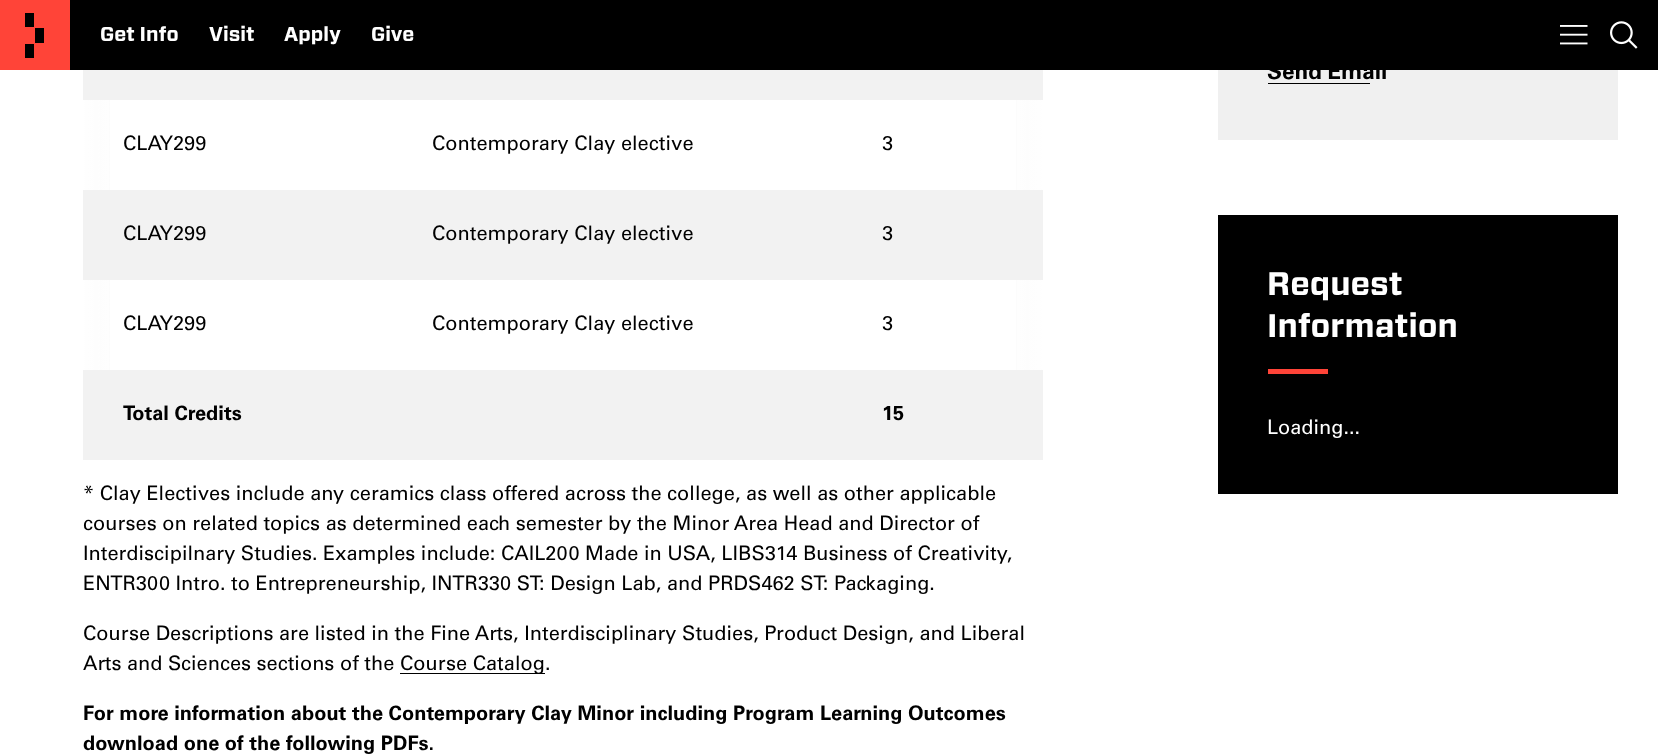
<!DOCTYPE html>
<meta charset="utf-8">
<style>body { margin: 0 } canvas { display: block }</style>
<canvas id="canvas" width="1658" height="754"></canvas>
<img id="img1" src="img_01.png" hidden>
<img id="img2" src="img_02.png" hidden>
<script>
window.onload = function () {
	const canvas = document.getElementById("canvas");
	const ctx = canvas.getContext("2d");
	ctx.miterLimit = 4;
	ctx.fontKerning = "normal";
	function txt(s, x, y) {
		ctx.fillText(s, x, y);
	}
	function fill(x, y, w, h) {
		ctx.fillRect(x, y, w, h);
	}
	function img(id, x, y, w, h) {
		ctx.drawImage(document.getElementById(id), x, y, w, h);
	}
	let gradient;

	ctx.fillStyle = "#FFFFFF";
	fill(0, 0, 1658, 754);
	ctx.fillStyle = "#000000";
	fill(70, 0, 1588, 70);
	ctx.fillStyle = "#FF4438";
	fill(0, 0, 70, 70);
	ctx.save();
	ctx.beginPath();
	ctx.rect(25, 13, 20, 45);
	ctx.clip();
	ctx.fillStyle = "#000000";
	ctx.beginPath();
	ctx.moveTo(25, 27);
	ctx.lineTo(34, 27);
	ctx.lineTo(34, 13);
	ctx.lineTo(25, 13);
	ctx.closePath();
	ctx.moveTo(25, 59);
	ctx.lineTo(34, 59);
	ctx.lineTo(34, 44);
	ctx.lineTo(25, 44);
	ctx.closePath();
	ctx.moveTo(44, 43);
	ctx.lineTo(35, 43);
	ctx.lineTo(35, 28);
	ctx.lineTo(44, 28);
	ctx.closePath();
	ctx.fill("evenodd");
	ctx.restore();
	img("img1", 1560, 25, 28, 20);
	img("img2", 1610, 21, 28, 28);
	ctx.fillStyle = "#F0F0F0";
	fill(1218, 70, 400, 70);
	ctx.fillStyle = "#000000";
	fill(1268, 83, 102, 1);
	gradient = ctx.createLinearGradient(1043, 148, 1013, 148);
	gradient.addColorStop(0, "#E6E6E6");
	gradient.addColorStop(1, "#FFFFFF");
	ctx.fillStyle = gradient;
	fill(1016, 100, 26, 270);
	gradient = ctx.createLinearGradient(82, 148, 113, 148);
	gradient.addColorStop(0, "#E6E6E6");
	gradient.addColorStop(1, "#FFFFFF");
	ctx.fillStyle = gradient;
	fill(83, 100, 27, 270);
	gradient = ctx.createLinearGradient(1043, 148, 923, 148);
	gradient.addColorStop(0, "#FFFFFF");
	gradient.addColorStop(1, "rgba(255, 255, 255, 0)");
	ctx.fillStyle = gradient;
	fill(1017, 100, 25, 270);
	gradient = ctx.createLinearGradient(82, 148, 203, 148);
	gradient.addColorStop(0, "#FFFFFF");
	gradient.addColorStop(1, "rgba(255, 255, 255, 0)");
	ctx.fillStyle = gradient;
	fill(83, 100, 26, 270);
	ctx.fillStyle = "#F2F2F2";
	fill(83, 70, 960, 30);
	fill(83, 190, 960, 90);
	fill(83, 370, 960, 90);
	ctx.fillStyle = "#000000";
	fill(400, 673, 145, 1);
	fill(1218, 215, 400, 279);
	ctx.fillStyle = "#FF4438";
	fill(1268, 369, 60, 5);
	ctx.font = "bold 20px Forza";
	ctx.fillStyle = "#FFFFFF";
	txt("Get Info", 100, 41);
	txt("Visit", 209, 41);
	txt("Apply", 284, 41);
	txt("Give", 371, 41);
	ctx.wordSpacing = "-1px";
	ctx.font = "bold 22.5px Univers";
	ctx.fillStyle = "#000000";
	txt("Send Email", 1267, 79);
	ctx.wordSpacing = "0px";
	ctx.font = "20px Univers";
	txt("CLAY299", 123, 150);
	txt("Contemporary Clay elective", 432, 150);
	txt("3", 882, 150);
	txt("CLAY299", 123, 240);
	txt("Contemporary Clay elective", 432, 240);
	txt("3", 882, 240);
	txt("CLAY299", 123, 330);
	txt("Contemporary Clay elective", 432, 330);
	txt("3", 882, 330);
	ctx.font = "bold 20px Univers";
	txt("Total Credits", 123, 420);
	txt("15", 882, 420);
	ctx.font = "20px Univers";
	txt("* Clay Electives include any ceramics class offered across the college, as well as other applicable", 83, 500);
	txt("courses on related topics as determined each semester by the Minor Area Head and Director of", 83, 530);
	txt("Interdiscipilnary Studies. Examples include: CAIL200 Made in USA, LIBS314 Business of Creativity,", 83, 560);
	txt("ENTR300 Intro. to Entrepreneurship, INTR330 ST: Design Lab, and PRDS462 ST: Packaging.", 83, 590);
	txt("Course Descriptions are listed in the Fine Arts, Interdisciplinary Studies, Product Design, and Liberal", 83, 640);
	txt("Arts and Sciences sections of the", 83, 670);
	txt("Course Catalog.", 400, 670);
	ctx.font = "bold 20px Univers";
	txt("For more information about the Contemporary Clay Minor including Program Learning Outcomes", 83, 720);
	txt("download one of the following PDFs.", 83, 750);
	ctx.font = "bold 32.5px Forza";
	ctx.fillStyle = "#FFFFFF";
	txt("Request", 1267, 295);
	txt("Information", 1267, 337);
	ctx.font = "20px Univers";
	txt("Loading...", 1267, 434);
};
</script>
